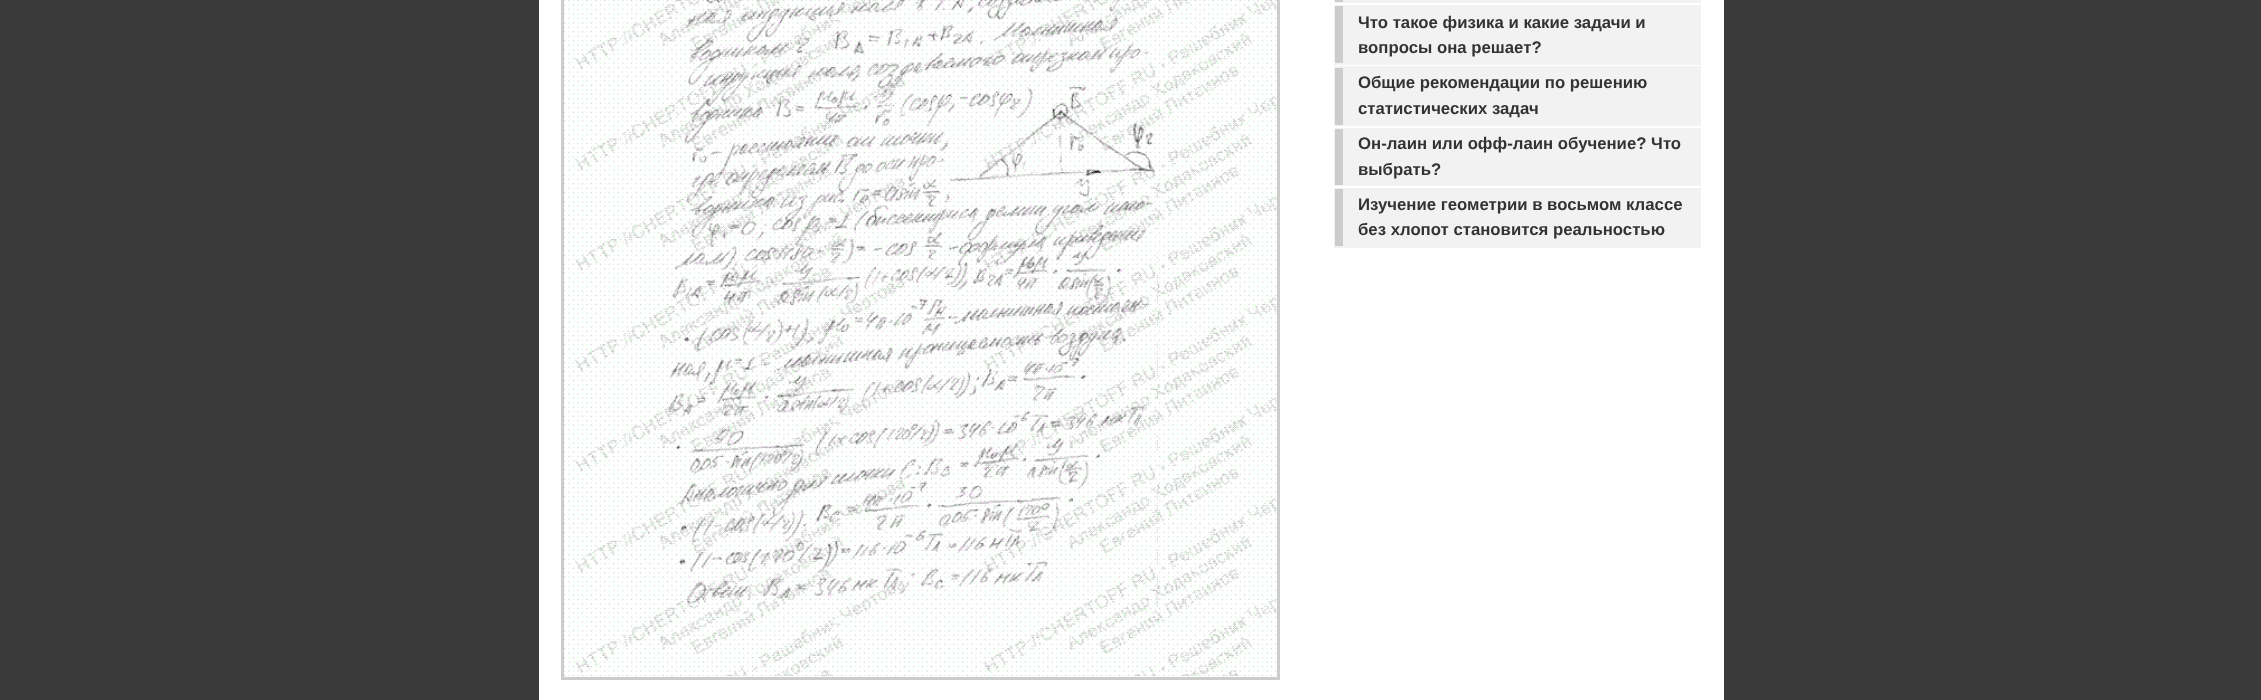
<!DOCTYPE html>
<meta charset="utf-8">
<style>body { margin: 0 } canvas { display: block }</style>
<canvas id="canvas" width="2261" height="700"></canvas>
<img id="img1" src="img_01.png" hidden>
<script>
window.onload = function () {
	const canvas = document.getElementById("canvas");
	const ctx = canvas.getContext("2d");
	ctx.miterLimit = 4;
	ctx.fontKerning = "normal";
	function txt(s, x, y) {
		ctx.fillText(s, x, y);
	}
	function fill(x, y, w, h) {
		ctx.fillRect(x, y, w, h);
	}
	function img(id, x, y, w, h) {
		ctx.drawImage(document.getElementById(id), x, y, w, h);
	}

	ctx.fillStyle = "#3A3A3A";
	fill(0, 0, 2261, 700);
	ctx.fillStyle = "#FFFFFF";
	fill(539, 0, 1185, 700);
	ctx.strokeStyle = "#CCCCCC";
	ctx.lineWidth = 3;
	ctx.strokeRect(562.5, -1.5, 716, 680);
	img("img1", 564, 0, 713, 676);
	ctx.strokeStyle = "#F2F2F2";
	ctx.lineWidth = 2;
	ctx.strokeRect(1335, -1, 365, 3);
	ctx.fillStyle = "#F2F2F2";
	fill(1335, 0, 365, 1);
	ctx.fillStyle = "#CCCCCC";
	fill(1335, 0, 8, 2);
	ctx.strokeRect(1335, 6, 365, 58);
	ctx.fillStyle = "#F2F2F2";
	fill(1343, 7, 356, 56);
	ctx.fillStyle = "#CCCCCC";
	fill(1335, 6, 8, 57);
	ctx.strokeRect(1335, 67, 365, 58);
	ctx.fillStyle = "#F2F2F2";
	fill(1343, 68, 356, 56);
	ctx.fillStyle = "#CCCCCC";
	fill(1335, 68, 8, 57);
	ctx.strokeRect(1335, 129, 365, 56);
	ctx.fillStyle = "#F2F2F2";
	fill(1343, 130, 356, 54);
	ctx.fillStyle = "#CCCCCC";
	fill(1335, 129, 8, 56);
	ctx.strokeRect(1335, 189, 365, 58);
	ctx.fillStyle = "#F2F2F2";
	fill(1343, 190, 356, 56);
	ctx.fillStyle = "#CCCCCC";
	fill(1335, 189, 8, 57);
	ctx.font = "bold 16.75px Liberation Sans";
	ctx.fillStyle = "#333333";
	txt("Что такое физика и какие задачи и", 1358, 28);
	txt("вопросы она решает?", 1358, 53);
	txt("Общие рекомендации по решению", 1358, 88);
	txt("статистических задач", 1358, 114);
	txt("Он-лаин или офф-лаин обучение? Что", 1358, 149);
	txt("выбрать?", 1358, 175);
	txt("Изучение геометрии в восьмом классе", 1358, 210);
	txt("без хлопот становится реальностью", 1358, 235);
};
</script>
